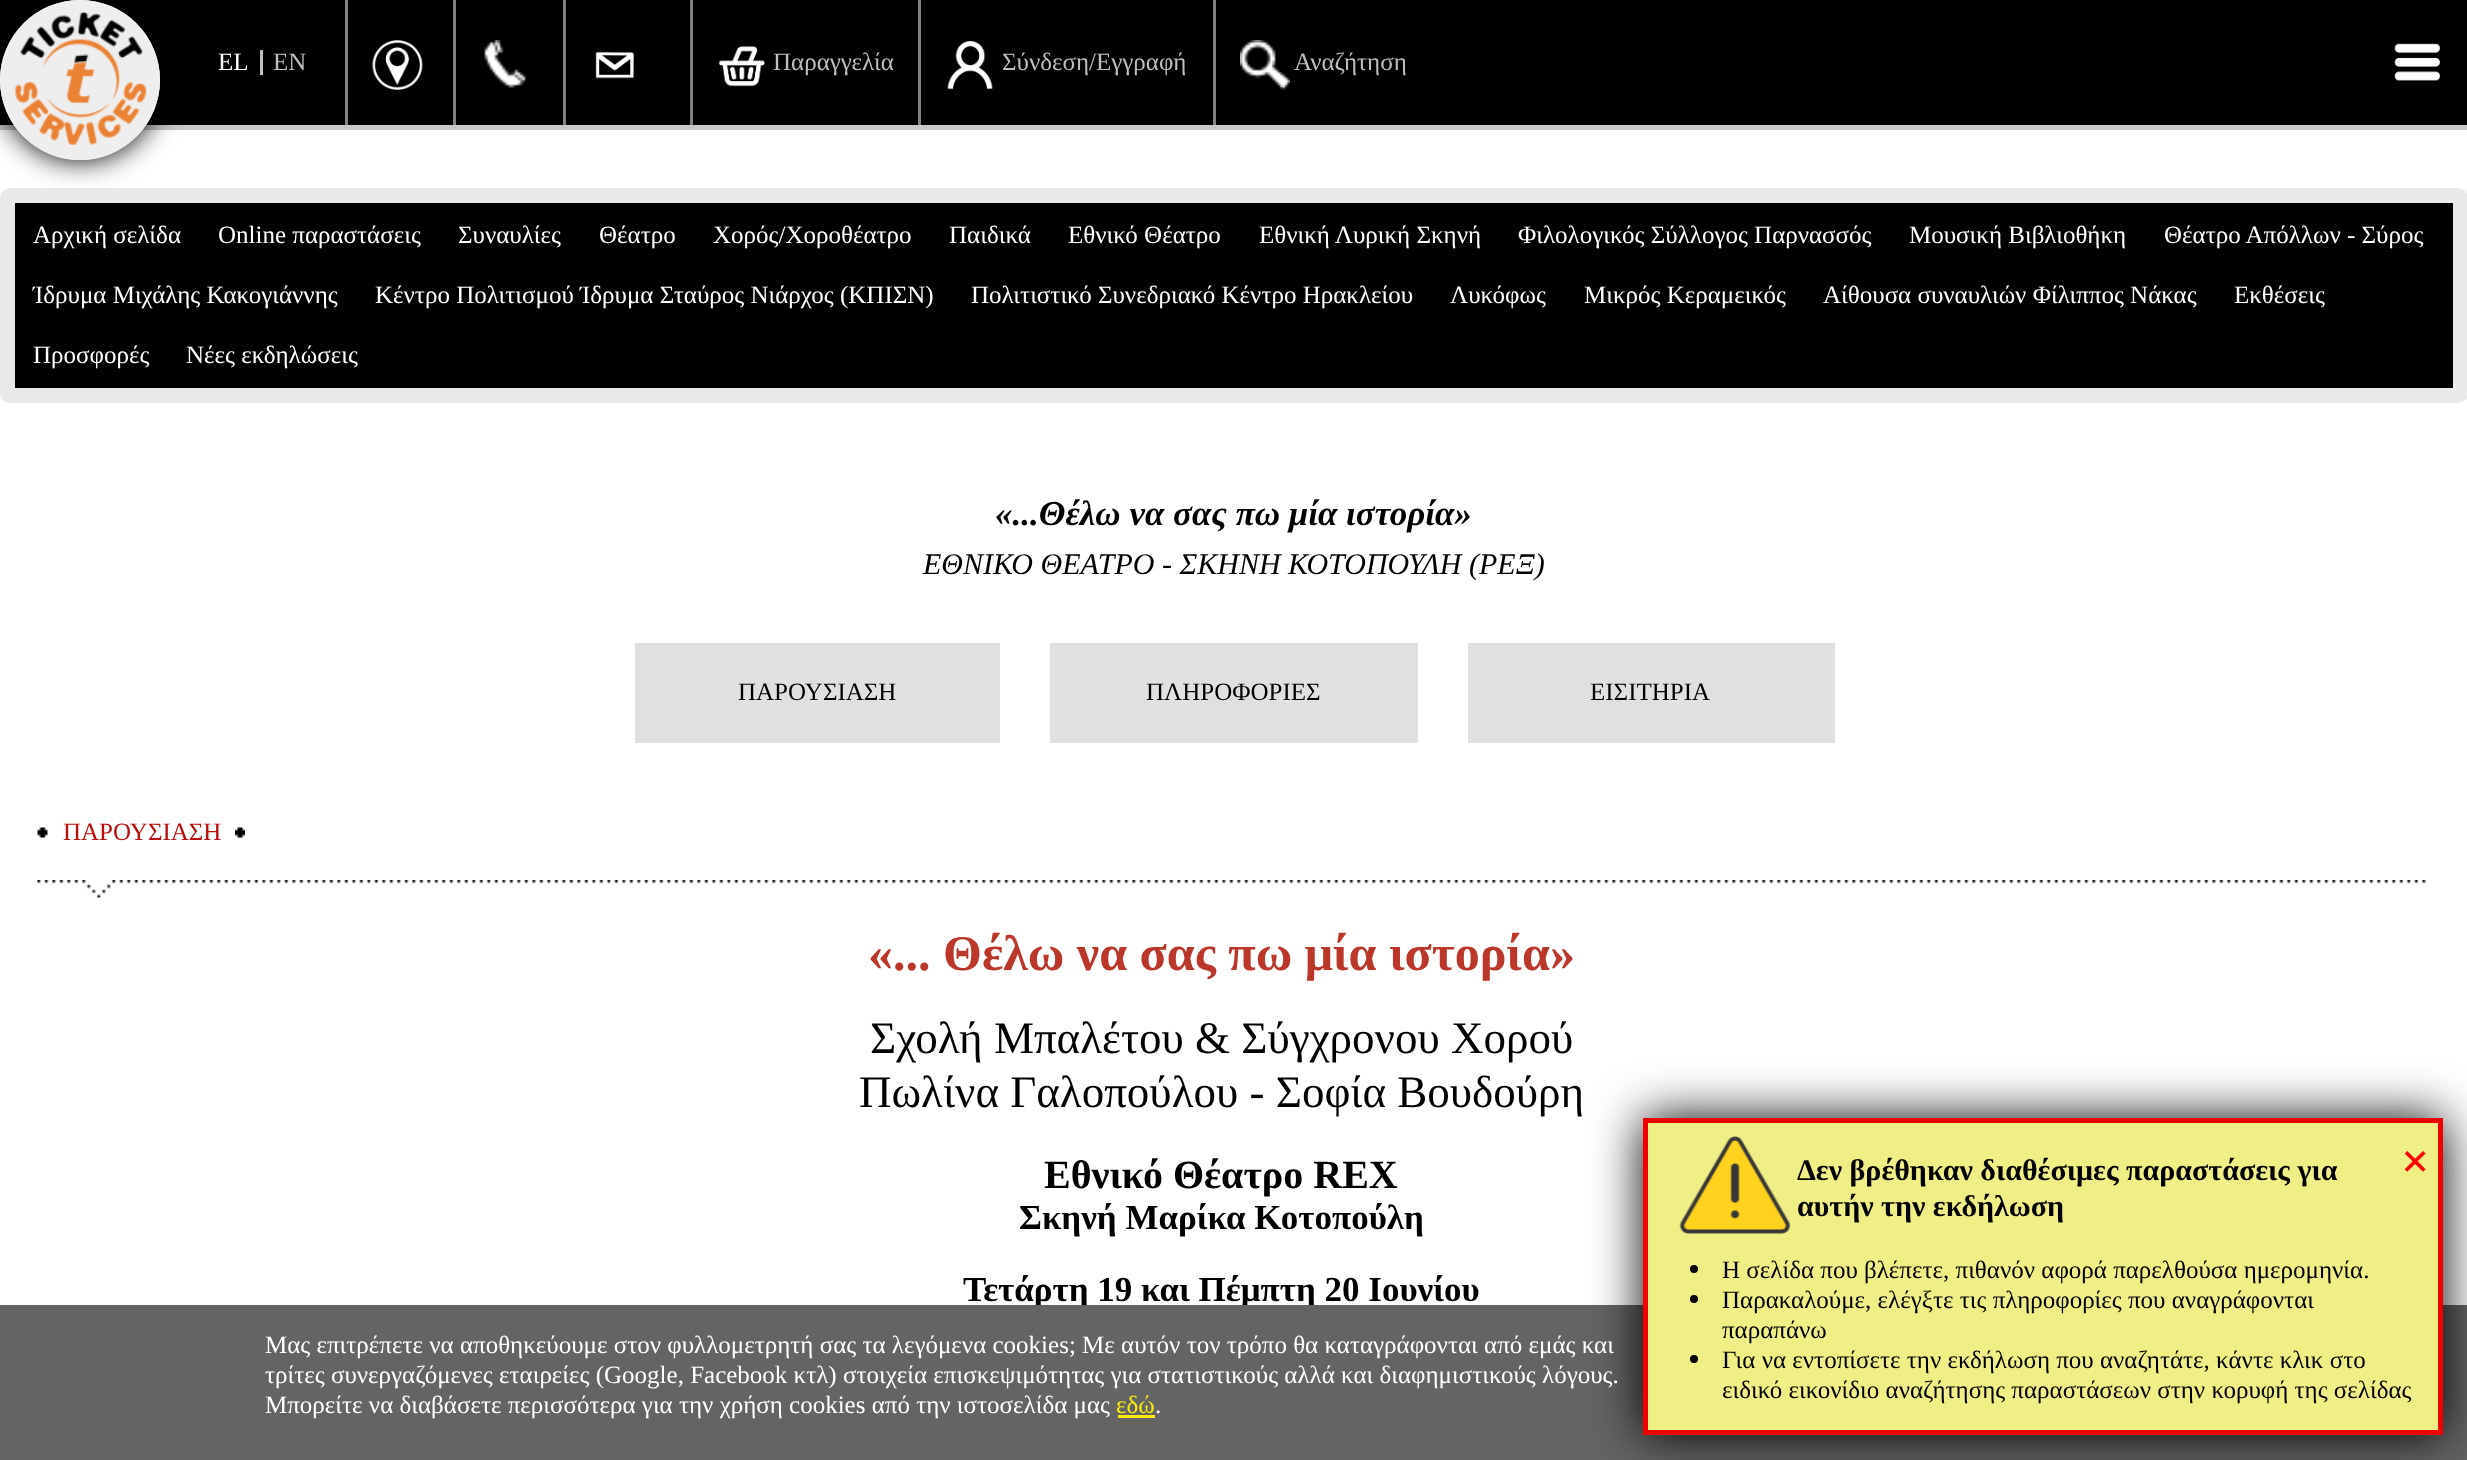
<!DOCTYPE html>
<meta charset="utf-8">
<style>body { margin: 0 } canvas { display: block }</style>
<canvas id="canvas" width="2467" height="1460"></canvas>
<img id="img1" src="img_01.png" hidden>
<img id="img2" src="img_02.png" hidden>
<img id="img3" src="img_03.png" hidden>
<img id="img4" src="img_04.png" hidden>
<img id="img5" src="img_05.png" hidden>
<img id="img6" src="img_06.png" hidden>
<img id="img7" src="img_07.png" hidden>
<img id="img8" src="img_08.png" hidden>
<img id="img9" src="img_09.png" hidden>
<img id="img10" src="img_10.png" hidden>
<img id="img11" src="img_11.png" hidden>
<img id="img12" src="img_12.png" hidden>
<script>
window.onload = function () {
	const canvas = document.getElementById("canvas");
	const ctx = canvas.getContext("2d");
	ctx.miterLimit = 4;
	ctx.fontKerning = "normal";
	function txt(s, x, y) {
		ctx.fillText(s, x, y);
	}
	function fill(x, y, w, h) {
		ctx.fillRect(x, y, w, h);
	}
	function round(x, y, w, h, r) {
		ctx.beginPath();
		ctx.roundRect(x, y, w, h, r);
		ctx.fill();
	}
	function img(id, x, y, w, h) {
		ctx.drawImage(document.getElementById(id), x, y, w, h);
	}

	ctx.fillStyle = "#FFFFFF";
	fill(0, 0, 2467, 1460);
	ctx.fillStyle = "#000000";
	fill(0, 0, 2467, 125);
	ctx.fillStyle = "#C8C8C8";
	fill(0, 125, 2467, 5);
	ctx.fillStyle = "#E9E9E9";
	round(0, 188, 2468, 215, 10);
	ctx.fillStyle = "#000000";
	ctx.filter = "blur(14px)";
	ctx.beginPath();
	ctx.roundRect(0, 0, 160, 160, 80);
	ctx.fill();
	ctx.filter = "none";
	ctx.fillStyle = "#EEEEEE";
	ctx.beginPath();
	ctx.arc(80, 80, 80, 0, Math.PI * 2);
	ctx.fill();
	img("img1", 15, 12, 132, 133);
	ctx.beginPath();
	ctx.arc(80, 80, 75, 0, Math.PI * 2);
	ctx.strokeStyle = "#EEEEEE";
	ctx.lineWidth = 10;
	ctx.stroke();
	ctx.fillStyle = "#BEBEBE";
	fill(260, 50, 3, 25);
	ctx.fillStyle = "#808080";
	fill(345, 0, 3, 125);
	img("img2", 372, 40, 51, 50);
	fill(453, 0, 3, 125);
	img("img3", 484, 40, 42, 49);
	fill(563, 0, 3, 125);
	img("img4", 595, 51, 39, 28);
	fill(690, 0, 3, 125);
	img("img5", 718, 46, 47, 41);
	fill(918, 0, 3, 125);
	img("img6", 947, 41, 46, 49);
	fill(1213, 0, 3, 125);
	img("img7", 1240, 40, 50, 50);
	img("img8", 2394, 43, 47, 38);
	ctx.fillStyle = "#000000";
	fill(15, 203, 2438, 185);
	ctx.fillStyle = "#E0E0E0";
	fill(635, 643, 365, 100);
	fill(1050, 643, 368, 100);
	fill(1468, 643, 367, 100);
	img("img9", 37, 827, 11, 11);
	img("img10", 235, 827, 10, 11);
	img("img11", 37, 880, 2389, 18);
	ctx.font = "25px Liberation Serif";
	ctx.fillStyle = "#FFFFFF";
	txt("EL", 218, 70);
	ctx.fillStyle = "#BEBEBE";
	txt("EN", 273, 70);
	txt("Παραγγελία", 773, 70);
	txt("Σύνδεση/Εγγραφή", 1002, 70);
	txt("Αναζήτηση", 1294, 70);
	ctx.fillStyle = "#FFFFFF";
	txt("Αρχική σελίδα", 33, 243);
	txt("Online παραστάσεις", 218, 243);
	txt("Συναυλίες", 458, 243);
	txt("Θέατρο", 599, 243);
	txt("Χορός/Χοροθέατρο", 713, 243);
	txt("Παιδικά", 949, 243);
	txt("Εθνικό Θέατρο", 1068, 243);
	txt("Εθνική Λυρική Σκηνή", 1259, 243);
	txt("Φιλολογικός Σύλλογος Παρνασσός", 1518, 243);
	txt("Μουσική Βιβλιοθήκη", 1909, 243);
	txt("Θέατρο Απόλλων - Σύρος", 2164, 243);
	txt("Ίδρυμα Μιχάλης Κακογιάννης", 33, 303);
	txt("Κέντρο Πολιτισμού Ίδρυμα Σταύρος Νιάρχος (ΚΠΙΣΝ)", 375, 303);
	txt("Πολιτιστικό Συνεδριακό Κέντρο Ηρακλείου", 971, 303);
	txt("Λυκόφως", 1450, 303);
	txt("Μικρός Κεραμεικός", 1584, 303);
	txt("Αίθουσα συναυλιών Φίλιππος Νάκας", 1823, 303);
	txt("Εκθέσεις", 2234, 303);
	txt("Προσφορές", 33, 363);
	txt("Νέες εκδηλώσεις", 186, 363);
	ctx.font = "italic bold 35px Liberation Serif";
	ctx.fillStyle = "#000000";
	txt("«...Θέλω να σας πω μία ιστορία»", 995, 525);
	ctx.font = "italic 30px Liberation Serif";
	txt("ΕΘΝΙΚΟ ΘΕΑΤΡΟ - ΣΚΗΝΗ ΚΟΤΟΠΟΥΛΗ (ΡΕΞ)", 923, 574);
	ctx.font = "25px Liberation Serif";
	txt("ΠΑΡΟΥΣΙΑΣΗ", 738, 700);
	txt("ΠΛΗΡΟΦΟΡΙΕΣ", 1146, 700);
	txt("ΕΙΣΙΤΗΡΙΑ", 1590, 700);
	ctx.fillStyle = "#BC0C0C";
	txt("ΠΑΡΟΥΣΙΑΣΗ", 63, 840);
	ctx.font = "bold 50px Liberation Serif";
	ctx.fillStyle = "#BA372A";
	txt("«... Θέλω να σας πω μία ιστορία»", 868, 970);
	ctx.font = "45px Liberation Serif";
	ctx.fillStyle = "#000000";
	txt("Σχολή Μπαλέτου & Σύγχρονου Χορού", 870, 1053);
	txt("Πωλίνα Γαλοπούλου - Σοφία Βουδούρη", 859, 1107);
	ctx.font = "bold 40px Liberation Serif";
	txt("Εθνικό Θέατρο REX", 1044, 1188);
	ctx.font = "bold 35px Liberation Serif";
	txt("Σκηνή Μαρίκα Κοτοπούλη", 1019, 1229);
	txt("Τετάρτη 19 και Πέμπτη 20 Ιουνίου", 963, 1301);
	ctx.fillStyle = "#646464";
	fill(0, 1305, 2467, 155);
	ctx.fillStyle = "#000000";
	ctx.filter = "blur(25px)";
	ctx.beginPath();
	ctx.rect(1643, 1118, 800, 317);
	ctx.fill();
	ctx.filter = "none";
	ctx.fillStyle = "#F0EF86";
	ctx.beginPath();
	ctx.rect(1645.5, 1120.5, 795, 312);
	ctx.fill();
	ctx.strokeStyle = "#F00000";
	ctx.lineWidth = 5;
	ctx.stroke();
	ctx.font = "bold 50px Liberation Serif";
	ctx.fillStyle = "#FF0000";
	txt("×", 2401, 1178);
	ctx.font = "25px Liberation Serif";
	ctx.fillStyle = "#000000";
	txt("ειδικό εικονίδιο αναζήτησης παραστάσεων στην κορυφή της σελίδας", 1722, 1398);
	txt("Για να εντοπίσετε την εκδήλωση που αναζητάτε, κάντε κλικ στο", 1722, 1368);
	ctx.beginPath();
	ctx.arc(1694, 1359, 4, 0, Math.PI * 2);
	ctx.fill();
	txt("παραπάνω", 1722, 1338);
	txt("Παρακαλούμε, ελέγξτε τις πληροφορίες που αναγράφονται", 1722, 1308);
	ctx.beginPath();
	ctx.arc(1694, 1299, 4, 0, Math.PI * 2);
	ctx.fill();
	txt("Η σελίδα που βλέπετε, πιθανόν αφορά παρελθούσα ημερομηνία.", 1722, 1278);
	ctx.beginPath();
	ctx.arc(1694, 1269, 4, 0, Math.PI * 2);
	ctx.fill();
	ctx.font = "bold 30px Liberation Serif";
	txt("αυτήν την εκδήλωση", 1797, 1216);
	txt("Δεν βρέθηκαν διαθέσιμες παραστάσεις για", 1797, 1180);
	img("img12", 1679, 1136, 112, 98);
	ctx.font = "25px Liberation Serif";
	ctx.fillStyle = "#FFFFFF";
	txt("Μας επιτρέπετε να αποθηκεύουμε στον φυλλομετρητή σας τα λεγόμενα cookies; Με αυτόν τον τρόπο θα καταγράφονται από εμάς και", 265, 1353);
	txt("τρίτες συνεργαζόμενες εταιρείες (Google, Facebook κτλ) στοιχεία επισκεψιμότητας για στατιστικούς αλλά και διαφημιστικούς λόγους.", 265, 1383);
	txt("Μπορείτε να διαβάσετε περισσότερα για την χρήση cookies από την ιστοσελίδα μας", 265, 1413);
	ctx.fillStyle = "#FBEC0B";
	txt("εδώ", 1116, 1413);
	fill(1118, 1415, 37, 3);
	ctx.fillStyle = "#FFFFFF";
	txt(".", 1155, 1413);
};
</script>
